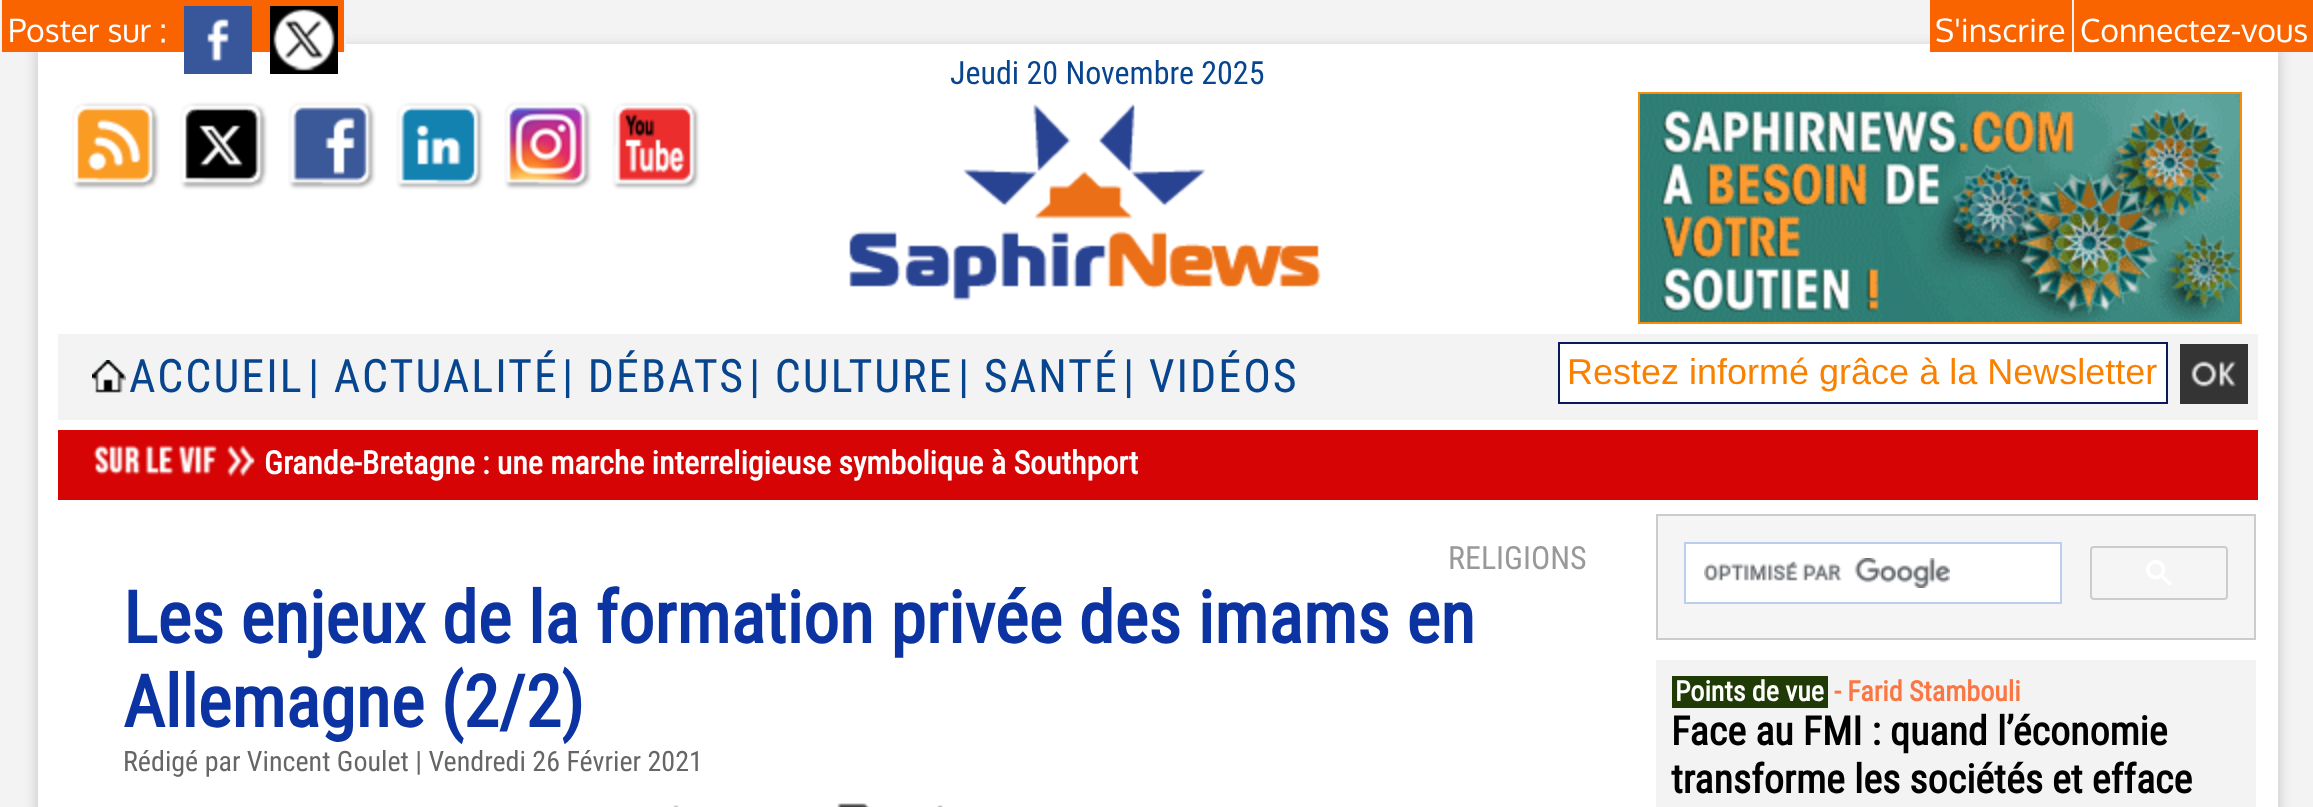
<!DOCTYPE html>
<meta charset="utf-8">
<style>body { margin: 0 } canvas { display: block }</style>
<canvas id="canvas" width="2313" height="807"></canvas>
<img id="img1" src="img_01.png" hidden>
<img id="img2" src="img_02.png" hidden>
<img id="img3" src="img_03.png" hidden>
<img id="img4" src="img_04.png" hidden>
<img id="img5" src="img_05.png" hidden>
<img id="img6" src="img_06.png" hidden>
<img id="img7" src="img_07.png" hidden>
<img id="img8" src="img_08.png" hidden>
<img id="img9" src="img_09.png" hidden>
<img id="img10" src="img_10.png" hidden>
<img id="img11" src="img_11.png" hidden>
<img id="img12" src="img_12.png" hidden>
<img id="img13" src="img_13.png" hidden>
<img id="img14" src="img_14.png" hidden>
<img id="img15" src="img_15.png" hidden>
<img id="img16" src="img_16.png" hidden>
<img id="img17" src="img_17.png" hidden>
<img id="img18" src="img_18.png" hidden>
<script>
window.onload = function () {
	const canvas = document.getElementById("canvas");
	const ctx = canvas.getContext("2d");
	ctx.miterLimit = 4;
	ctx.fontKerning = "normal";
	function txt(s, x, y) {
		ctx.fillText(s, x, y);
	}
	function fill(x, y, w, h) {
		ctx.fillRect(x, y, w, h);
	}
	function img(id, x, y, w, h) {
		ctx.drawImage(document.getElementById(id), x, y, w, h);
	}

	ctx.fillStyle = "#F3F3F3";
	fill(0, 0, 2313, 807);
	ctx.fillStyle = "#CCCCCC";
	ctx.filter = "blur(6px)";
	ctx.beginPath();
	ctx.rect(36, 46, 2244, 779);
	ctx.fill();
	ctx.filter = "none";
	ctx.fillStyle = "#FFFFFF";
	fill(38, 44, 2240, 466);
	ctx.fillStyle = "#FA6400";
	fill(2, 0, 342, 52);
	ctx.fillStyle = "#F3F3F3";
	fill(344, 37, 2, 15);
	img("img1", 184, 6, 68, 68);
	img("img2", 270, 6, 68, 68);
	ctx.fillStyle = "#FA6400";
	fill(1930, 0, 142, 52);
	ctx.fillStyle = "#F3F3F3";
	fill(2072, 37, 2, 15);
	ctx.fillStyle = "#FA6400";
	fill(2074, 0, 239, 52);
	img("img3", 72, 102, 88, 88);
	img("img4", 180, 102, 88, 88);
	img("img5", 288, 102, 88, 88);
	img("img6", 396, 102, 88, 88);
	img("img7", 504, 102, 88, 88);
	img("img8", 612, 102, 88, 88);
	img("img9", 849, 103, 472, 198);
	ctx.strokeStyle = "#F58C0C";
	ctx.lineWidth = 2;
	ctx.strokeRect(1639, 93, 602, 230);
	img("img10", 1640, 94, 600, 228);
	ctx.fillStyle = "#F3F3F3";
	fill(58, 334, 2200, 86);
	img("img11", 92, 360, 34, 33);
	ctx.fillStyle = "#FFFFFF";
	ctx.beginPath();
	ctx.rect(1559, 343, 608, 60);
	ctx.fill();
	ctx.strokeStyle = "#0A195C";
	ctx.stroke();
	img("img12", 2180, 344, 68, 60);
	ctx.fillStyle = "#D60404";
	fill(58, 430, 2200, 70);
	img("img13", 93, 445, 162, 32);
	ctx.fillStyle = "#FFFFFF";
	fill(38, 510, 2240, 297);
	img("img14", 673, 805, 6, 2);
	img("img15", 837, 803, 32, 4);
	img("img16", 937, 805, 6, 2);
	ctx.fillStyle = "#F5F5F5";
	ctx.beginPath();
	ctx.rect(1657, 515, 598, 124);
	ctx.fill();
	ctx.strokeStyle = "#CCCCCC";
	ctx.stroke();
	ctx.fillStyle = "#FFFFFF";
	ctx.beginPath();
	ctx.rect(1685, 543, 376, 60);
	ctx.fill();
	ctx.strokeStyle = "#BCCDF0";
	ctx.stroke();
	img("img17", 1704, 558, 246, 30);
	ctx.beginPath();
	ctx.roundRect(2091, 547, 136, 52, 3);
	ctx.strokeStyle = "#CCCCCC";
	ctx.stroke();
	img("img18", 2146, 560, 26, 26);
	ctx.fillStyle = "#F3F3F3";
	fill(1656, 660, 600, 147);
	ctx.fillStyle = "#203B06";
	fill(1672, 676, 156, 32);
	ctx.font = "32px Oxygen";
	ctx.fillStyle = "#FFFFFF";
	txt("Poster sur :", 8, 42);
	txt("S'inscrire", 1935, 42);
	txt("Connectez-vous", 2080, 42);
	ctx.font = "32px Roboto Condensed";
	ctx.fillStyle = "#08458F";
	txt("Jeudi 20 Novembre 2025", 950, 84);
	ctx.letterSpacing = "2px";
	ctx.font = "46px Roboto Condensed";
	txt("ACCUEIL", 129, 392);
	txt("| ACTUALITÉ", 308, 392);
	txt("| DÉBATS", 562, 392);
	txt("| CULTURE", 749, 392);
	txt("| SANTÉ", 958, 392);
	txt("| VIDÉOS", 1123, 392);
	ctx.letterSpacing = "0px";
	ctx.font = "36px Liberation Sans";
	ctx.fillStyle = "#FA8100";
	txt("Restez informé grâce à la Newsletter", 1567, 384);
	ctx.font = "bold 32px Roboto Condensed";
	ctx.fillStyle = "#FFFFFF";
	txt("Grande-Bretagne : une marche interreligieuse symbolique à Southport", 264, 474);
	ctx.font = "32px Roboto Condensed";
	ctx.fillStyle = "#999999";
	txt("RELIGIONS", 1448, 569);
	ctx.font = "bold 72px Roboto Condensed";
	ctx.fillStyle = "#0B33A1";
	txt("Les enjeux de la formation privée des imams en", 123, 643);
	txt("Allemagne (2/2)", 123, 727);
	ctx.font = "28px Roboto Condensed";
	ctx.fillStyle = "#666666";
	txt("Rédigé par Vincent Goulet | Vendredi 26 Février 2021", 123, 771);
	ctx.font = "bold 28px Roboto Condensed";
	ctx.fillStyle = "#FFFFFF";
	txt("Points de vue", 1675, 701);
	ctx.fillStyle = "#FA7744";
	txt("- Farid Stambouli", 1834, 701);
	ctx.font = "bold 40px Roboto Condensed";
	ctx.fillStyle = "#000000";
	txt("Face au FMI : quand l’économie", 1671, 745);
	txt("transforme les sociétés et efface", 1671, 793);
};
</script>
